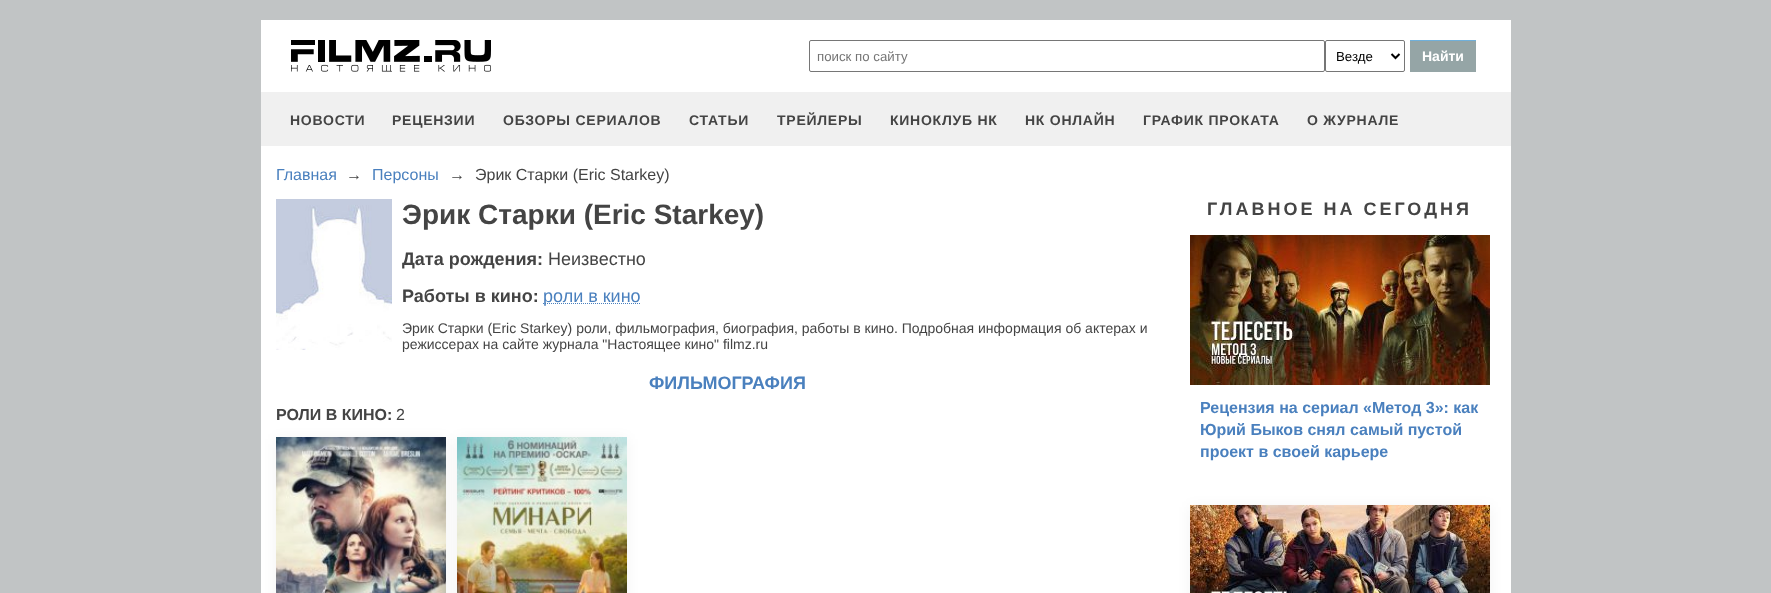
<!DOCTYPE html>
<meta charset="utf-8">
<style>body { margin: 0 } canvas { display: block }</style>
<canvas id="canvas" width="1771" height="593"></canvas>
<img id="img1" src="img_01.png" hidden>
<img id="img2" src="img_02.png" hidden>
<img id="img3" src="img_03.png" hidden>
<img id="img4" src="img_04.png" hidden>
<img id="img5" src="img_05.png" hidden>
<img id="img6" src="img_06.png" hidden>
<script>
window.onload = function () {
	const canvas = document.getElementById("canvas");
	const ctx = canvas.getContext("2d");
	ctx.miterLimit = 4;
	ctx.fontKerning = "normal";
	function txt(s, x, y) {
		ctx.fillText(s, x, y);
	}
	function fill(x, y, w, h) {
		ctx.fillRect(x, y, w, h);
	}
	function img(id, x, y, w, h) {
		ctx.drawImage(document.getElementById(id), x, y, w, h);
	}

	ctx.fillStyle = "#C1C4C5";
	fill(0, 0, 1771, 593);
	ctx.fillStyle = "#FFFFFF";
	fill(261, 20, 1250, 72);
	img("img1", 291, 40, 200, 32);
	ctx.beginPath();
	ctx.roundRect(809.5, 40.5, 515, 31, 1.5);
	ctx.strokeStyle = "#767676";
	ctx.stroke();
	ctx.beginPath();
	ctx.roundRect(1325.5, 40.5, 79, 31, 1.5);
	ctx.stroke();
	ctx.beginPath();
	ctx.moveTo(1391.5, 54);
	ctx.lineTo(1395.5, 58);
	ctx.lineTo(1399.5, 54);
	ctx.strokeStyle = "#000000";
	ctx.lineWidth = 2;
	ctx.stroke();
	ctx.fillStyle = "#95A5A6";
	fill(1410, 41, 66, 31);
	ctx.fillStyle = "#6FB0DB";
	fill(1410, 40, 66, 1);
	ctx.fillStyle = "#F0F0F0";
	fill(261, 92, 1250, 54);
	ctx.fillStyle = "#FFFFFF";
	fill(261, 146, 1250, 447);
	img("img2", 276, 199, 116, 151);
	ctx.beginPath();
	ctx.moveTo(543, 303.5);
	ctx.lineTo(641, 303.5);
	ctx.strokeStyle = "#4A80BE";
	ctx.lineWidth = 1;
	ctx.setLineDash([1, 1]);
	ctx.stroke();
	ctx.fillStyle = "rgba(0, 0, 0, 0.05)";
	ctx.filter = "blur(7px)";
	ctx.beginPath();
	ctx.rect(276, 439, 170, 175);
	ctx.fill();
	ctx.filter = "none";
	img("img3", 276, 437, 170, 156);
	ctx.filter = "blur(7px)";
	ctx.beginPath();
	ctx.rect(457, 439, 170, 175);
	ctx.fill();
	ctx.filter = "none";
	img("img4", 457, 437, 170, 156);
	img("img5", 1190, 235, 300, 150);
	ctx.filter = "blur(7px)";
	ctx.beginPath();
	ctx.rect(1190, 507, 300, 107);
	ctx.fill();
	ctx.filter = "none";
	img("img6", 1190, 505, 300, 88);
	ctx.font = "13.25px Liberation Sans";
	ctx.fillStyle = "#757575";
	txt("поиск по сайту", 817, 61);
	ctx.fillStyle = "#000000";
	txt("Везде", 1336, 61);
	ctx.font = "bold 14px Liberation Sans";
	ctx.fillStyle = "#FFFFFF";
	txt("Найти", 1422, 61);
	ctx.letterSpacing = "0.75px";
	ctx.fillStyle = "#444444";
	txt("НОВОСТИ", 290, 125);
	txt("РЕЦЕНЗИИ", 392, 125);
	txt("ОБЗОРЫ СЕРИАЛОВ", 503, 125);
	txt("СТАТЬИ", 689, 125);
	txt("ТРЕЙЛЕРЫ", 777, 125);
	txt("КИНОКЛУБ НК", 890, 125);
	txt("НК ОНЛАЙН", 1025, 125);
	txt("ГРАФИК ПРОКАТА", 1143, 125);
	txt("О ЖУРНАЛЕ", 1307, 125);
	ctx.letterSpacing = "0px";
	ctx.font = "16px Liberation Sans";
	ctx.fillStyle = "#4A80BE";
	txt("Главная", 276, 180);
	ctx.fillStyle = "#444444";
	txt("→", 346, 180);
	ctx.fillStyle = "#4A80BE";
	txt("Персоны", 372, 180);
	ctx.fillStyle = "#444444";
	txt("→", 449, 180);
	txt("Эрик Старки (Eric Starkey)", 475, 180);
	ctx.font = "bold 28px Liberation Sans";
	txt("Эрик Старки (Eric Starkey)", 402, 224);
	ctx.font = "bold 18px Liberation Sans";
	txt("Дата рождения:", 402, 265);
	ctx.font = "18px Liberation Sans";
	txt("Неизвестно", 548, 265);
	ctx.font = "bold 18px Liberation Sans";
	txt("Работы в кино:", 402, 302);
	ctx.font = "18px Liberation Sans";
	ctx.fillStyle = "#4A80BE";
	txt("роли в кино", 543, 302);
	ctx.font = "14px Liberation Sans";
	ctx.fillStyle = "#444444";
	txt("Эрик Старки (Eric Starkey) роли, фильмография, биография, работы в кино. Подробная информация об актерах и", 402, 333);
	txt("режиссерах на сайте журнала \"Настоящее кино\" filmz.ru", 402, 349);
	ctx.font = "bold 18px Liberation Sans";
	ctx.fillStyle = "#4A80BE";
	txt("ФИЛЬМОГРАФИЯ", 649, 389);
	ctx.font = "bold 16px Liberation Sans";
	ctx.fillStyle = "#444444";
	txt("РОЛИ В КИНО:", 276, 420);
	ctx.font = "16px Liberation Sans";
	txt("2", 396, 420);
	ctx.letterSpacing = "3px";
	ctx.font = "bold 18px Liberation Sans";
	txt("ГЛАВНОЕ НА СЕГОДНЯ", 1207, 215);
	ctx.letterSpacing = "0px";
	ctx.font = "bold 16px Liberation Sans";
	ctx.fillStyle = "#4A80BE";
	txt("Рецензия на сериал «Метод 3»: как", 1200, 413);
	txt("Юрий Быков снял самый пустой", 1200, 435);
	txt("проект в своей карьере", 1200, 457);
};
</script>
